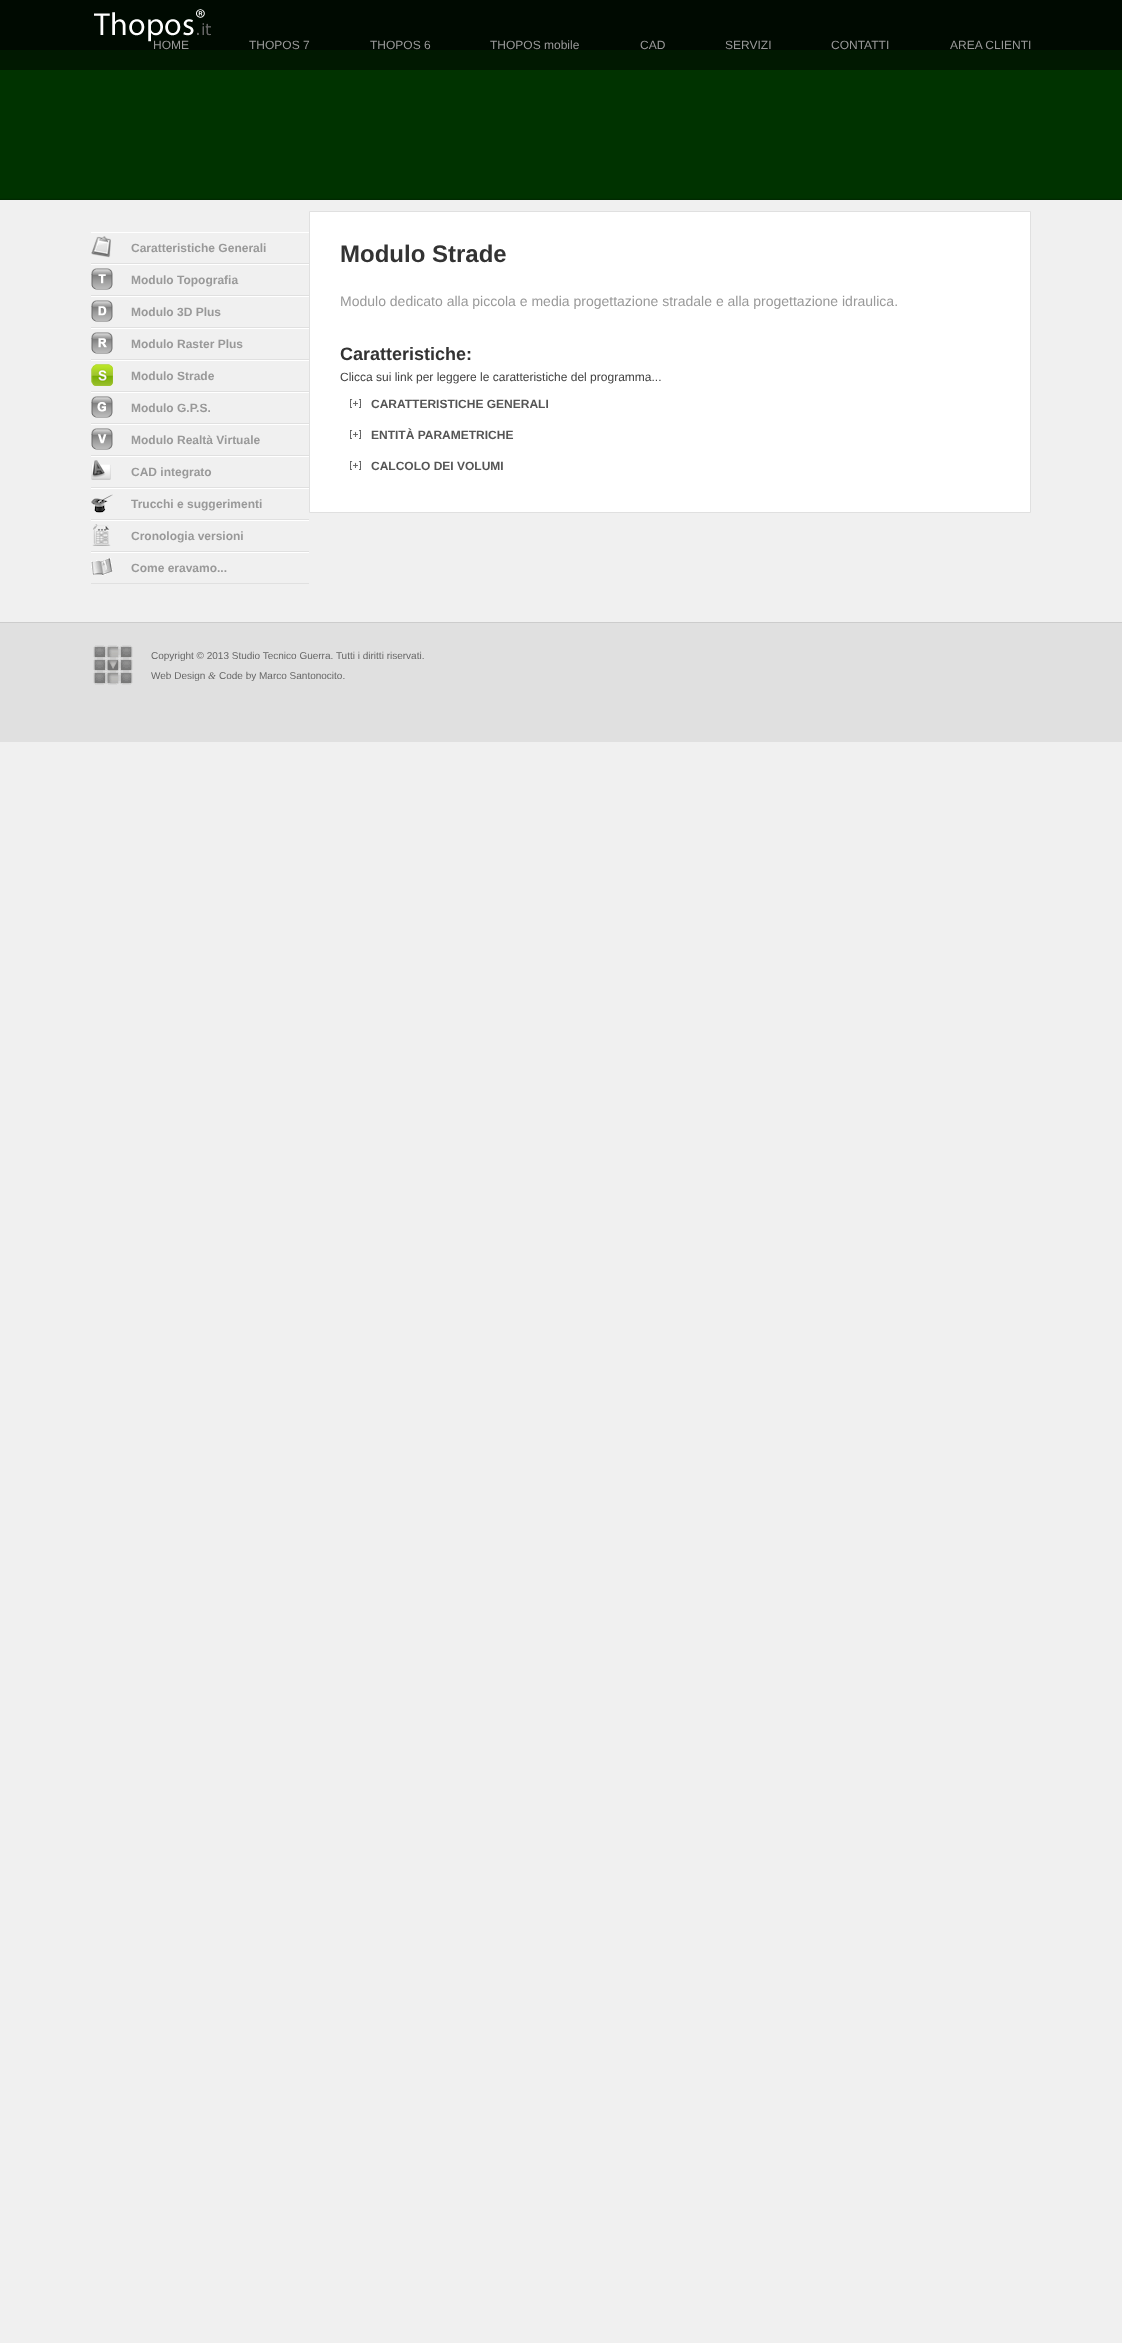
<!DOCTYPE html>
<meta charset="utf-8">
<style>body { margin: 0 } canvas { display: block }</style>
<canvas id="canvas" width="1122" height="2343"></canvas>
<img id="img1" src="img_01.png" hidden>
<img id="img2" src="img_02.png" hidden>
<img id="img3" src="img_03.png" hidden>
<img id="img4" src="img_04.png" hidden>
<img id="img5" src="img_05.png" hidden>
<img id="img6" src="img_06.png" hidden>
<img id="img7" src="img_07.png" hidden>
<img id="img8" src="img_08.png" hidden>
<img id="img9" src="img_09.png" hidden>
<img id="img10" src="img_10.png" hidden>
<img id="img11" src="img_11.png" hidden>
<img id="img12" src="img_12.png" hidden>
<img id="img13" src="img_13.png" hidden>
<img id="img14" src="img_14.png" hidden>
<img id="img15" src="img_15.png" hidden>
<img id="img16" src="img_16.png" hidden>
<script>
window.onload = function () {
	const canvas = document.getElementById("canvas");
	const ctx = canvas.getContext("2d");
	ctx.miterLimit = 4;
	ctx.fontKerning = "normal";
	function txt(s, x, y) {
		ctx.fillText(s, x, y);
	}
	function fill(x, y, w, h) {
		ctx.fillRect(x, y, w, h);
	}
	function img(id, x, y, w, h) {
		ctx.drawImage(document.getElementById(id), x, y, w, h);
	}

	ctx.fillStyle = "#F0F0F0";
	fill(0, 0, 1122, 2343);
	img("img1", 0, 80, 1122, 120);
	img("img2", 0, 0, 1122, 80);
	img("img3", 94, 9, 117, 33);
	ctx.fillStyle = "#FFFFFF";
	fill(91, 232, 218, 1);
	ctx.fillStyle = "#E0E0E0";
	fill(91, 263, 218, 1);
	img("img4", 91, 236, 20, 22);
	ctx.fillStyle = "#FFFFFF";
	fill(91, 264, 218, 1);
	ctx.fillStyle = "#E0E0E0";
	fill(91, 295, 218, 1);
	img("img5", 91, 268, 22, 22);
	ctx.fillStyle = "#FFFFFF";
	fill(91, 296, 218, 1);
	ctx.fillStyle = "#E0E0E0";
	fill(91, 327, 218, 1);
	img("img6", 91, 300, 22, 22);
	ctx.fillStyle = "#FFFFFF";
	fill(91, 328, 218, 1);
	ctx.fillStyle = "#E0E0E0";
	fill(91, 359, 218, 1);
	img("img7", 91, 332, 22, 22);
	ctx.fillStyle = "#FFFFFF";
	fill(91, 360, 218, 1);
	ctx.fillStyle = "#E0E0E0";
	fill(91, 391, 218, 1);
	img("img8", 91, 364, 22, 22);
	ctx.fillStyle = "#FFFFFF";
	fill(91, 392, 218, 1);
	ctx.fillStyle = "#E0E0E0";
	fill(91, 423, 218, 1);
	img("img9", 91, 396, 22, 22);
	ctx.fillStyle = "#FFFFFF";
	fill(91, 424, 218, 1);
	ctx.fillStyle = "#E0E0E0";
	fill(91, 455, 218, 1);
	img("img10", 91, 428, 22, 22);
	ctx.fillStyle = "#FFFFFF";
	fill(91, 456, 218, 1);
	ctx.fillStyle = "#E0E0E0";
	fill(91, 487, 218, 1);
	img("img11", 91, 460, 20, 20);
	ctx.fillStyle = "#FFFFFF";
	fill(91, 488, 218, 1);
	ctx.fillStyle = "#E0E0E0";
	fill(91, 519, 218, 1);
	img("img12", 91, 494, 22, 19);
	ctx.fillStyle = "#FFFFFF";
	fill(91, 520, 218, 1);
	ctx.fillStyle = "#E0E0E0";
	fill(91, 551, 218, 1);
	img("img13", 92, 524, 19, 22);
	ctx.fillStyle = "#FFFFFF";
	fill(91, 552, 218, 1);
	ctx.fillStyle = "#E0E0E0";
	fill(91, 583, 218, 1);
	img("img14", 91, 558, 22, 18);
	ctx.fillStyle = "#FFFFFF";
	ctx.beginPath();
	ctx.rect(309.5, 211.5, 721, 301);
	ctx.fill();
	ctx.strokeStyle = "#E0E0E0";
	ctx.stroke();
	img("img15", 350, 399, 11, 9);
	img("img15", 350, 430, 11, 9);
	img("img15", 350, 461, 11, 9);
	ctx.fillStyle = "#E0E0E0";
	fill(0, 623, 1122, 119);
	ctx.fillStyle = "#CCCCCC";
	fill(0, 622, 1122, 1);
	img("img16", 93, 645, 40, 40);
	ctx.font = "12px Liberation Sans";
	ctx.fillStyle = "#999999";
	txt("HOME", 153, 49);
	txt("THOPOS 7", 249, 49);
	txt("THOPOS 6", 370, 49);
	txt("THOPOS mobile", 490, 49);
	txt("CAD", 640, 49);
	txt("SERVIZI", 725, 49);
	txt("CONTATTI", 831, 49);
	txt("AREA CLIENTI", 950, 49);
	ctx.font = "bold 12px Liberation Sans";
	txt("Caratteristiche Generali", 131, 252);
	txt("Modulo Topografia", 131, 284);
	txt("Modulo 3D Plus", 131, 316);
	txt("Modulo Raster Plus", 131, 348);
	txt("Modulo Strade", 131, 380);
	txt("Modulo G.P.S.", 131, 412);
	txt("Modulo Realtà Virtuale", 131, 444);
	txt("CAD integrato", 131, 476);
	txt("Trucchi e suggerimenti", 131, 508);
	txt("Cronologia versioni", 131, 540);
	txt("Come eravamo...", 131, 572);
	ctx.font = "bold 24px Liberation Sans";
	ctx.fillStyle = "#333333";
	txt("Modulo Strade", 340, 262);
	ctx.font = "14px Liberation Sans";
	ctx.fillStyle = "#999999";
	txt("Modulo dedicato alla piccola e media progettazione stradale e alla progettazione idraulica.", 340, 306);
	ctx.font = "bold 18px Liberation Sans";
	ctx.fillStyle = "#333333";
	txt("Caratteristiche:", 340, 360);
	ctx.font = "12px Liberation Sans";
	ctx.fillStyle = "#404040";
	txt("Clicca sui link per leggere le caratteristiche del programma...", 340, 381);
	ctx.font = "bold 12px Liberation Sans";
	ctx.fillStyle = "#555555";
	txt("CARATTERISTICHE GENERALI", 371, 408);
	txt("ENTITÀ PARAMETRICHE", 371, 439);
	txt("CALCOLO DEI VOLUMI", 371, 470);
	ctx.font = "10px Liberation Sans";
	ctx.fillStyle = "#666666";
	txt("Copyright © 2013 Studio Tecnico Guerra. Tutti i diritti riservati.", 151, 659);
	txt("Web Design", 151, 679);
	ctx.font = "italic 10px Liberation Serif";
	txt("&", 208, 679);
	ctx.font = "10px Liberation Sans";
	txt("Code by Marco Santonocito.", 219, 679);
};
</script>
